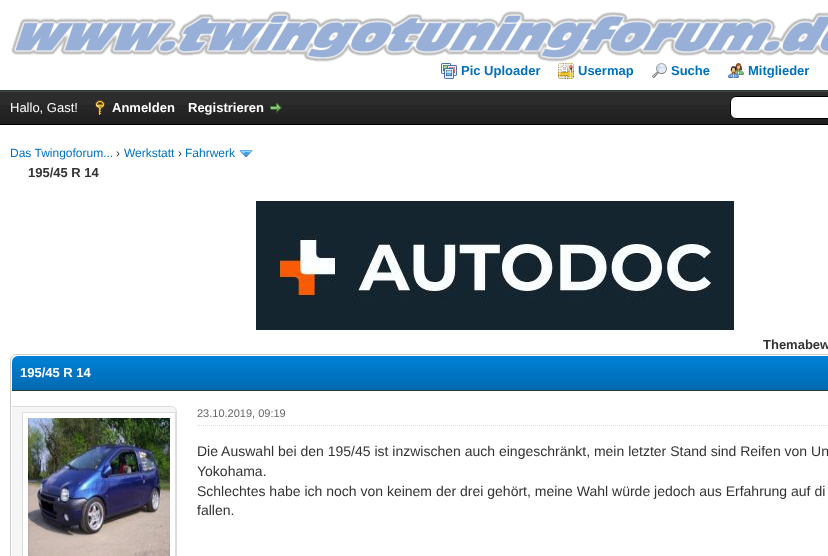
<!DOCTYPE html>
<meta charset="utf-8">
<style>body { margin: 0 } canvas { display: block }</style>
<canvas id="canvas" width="828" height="556"></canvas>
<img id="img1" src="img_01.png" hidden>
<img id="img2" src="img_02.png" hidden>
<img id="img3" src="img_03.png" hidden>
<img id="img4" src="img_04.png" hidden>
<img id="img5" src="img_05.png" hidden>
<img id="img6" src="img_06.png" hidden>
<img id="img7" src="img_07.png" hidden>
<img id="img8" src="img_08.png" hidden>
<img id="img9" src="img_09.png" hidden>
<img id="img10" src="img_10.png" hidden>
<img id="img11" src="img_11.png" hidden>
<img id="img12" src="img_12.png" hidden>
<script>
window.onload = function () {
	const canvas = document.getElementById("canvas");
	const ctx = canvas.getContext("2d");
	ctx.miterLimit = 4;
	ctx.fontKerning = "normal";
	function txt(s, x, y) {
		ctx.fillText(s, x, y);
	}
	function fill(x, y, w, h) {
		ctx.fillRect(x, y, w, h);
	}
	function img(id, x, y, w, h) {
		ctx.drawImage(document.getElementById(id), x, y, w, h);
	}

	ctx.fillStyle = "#FFFFFF";
	fill(0, 0, 828, 556);
	ctx.fillStyle = "#263C30";
	fill(0, 90, 828, 1);
	img("img1", 11, 11, 817, 51);
	img("img2", 441, 63, 16, 16);
	img("img3", 558, 63, 16, 16);
	img("img4", 652, 63, 15, 15);
	img("img5", 728, 63, 16, 15);
	img("img6", 0, 92, 828, 32);
	ctx.fillStyle = "#444444";
	fill(0, 91, 828, 1);
	ctx.fillStyle = "#000000";
	fill(0, 124, 828, 1);
	img("img7", 95, 100, 10, 15);
	img("img8", 270, 103, 12, 10);
	ctx.fillStyle = "#FFFFFF";
	ctx.beginPath();
	ctx.roundRect(730.5, 96.5, 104, 22, 5.5);
	ctx.fill();
	ctx.strokeStyle = "#000000";
	ctx.stroke();
	img("img9", 239, 150, 14, 7);
	img("img10", 256, 201, 478, 129);
	ctx.beginPath();
	ctx.roundRect(10.5, 354.5, 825, 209, 6.5);
	ctx.strokeStyle = "#CCCCCC";
	ctx.stroke();
	img("img11", 12, 356, 816, 34);
	ctx.fillStyle = "#263C30";
	fill(12, 390, 816, 1);
	ctx.fillStyle = "#F5F5F5";
	ctx.beginPath();
	ctx.moveTo(12, 406);
	ctx.lineTo(171, 406);
	ctx.bezierCurveTo(174.5, 406, 177, 408.5, 177, 412);
	ctx.lineTo(177, 556);
	ctx.bezierCurveTo(177, 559.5, 174.5, 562, 171, 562);
	ctx.lineTo(12, 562);
	ctx.closePath();
	ctx.fill();
	ctx.fillStyle = "#DDDDDD";
	ctx.beginPath();
	ctx.moveTo(12, 406);
	ctx.lineTo(171, 406);
	ctx.bezierCurveTo(174, 406, 177, 409, 177, 412);
	ctx.lineTo(177, 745);
	ctx.bezierCurveTo(177, 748, 174, 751, 171, 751);
	ctx.lineTo(12, 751);
	ctx.closePath();
	ctx.moveTo(12, 407);
	ctx.lineTo(171, 407);
	ctx.bezierCurveTo(174, 407, 176, 409, 176, 412);
	ctx.lineTo(176, 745);
	ctx.bezierCurveTo(176, 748, 174, 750, 171, 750);
	ctx.lineTo(12, 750);
	ctx.closePath();
	ctx.fill("evenodd");
	ctx.fillStyle = "#FFFFFF";
	ctx.beginPath();
	ctx.rect(22.5, 412.5, 153, 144);
	ctx.fill();
	ctx.strokeStyle = "#DDDDDD";
	ctx.stroke();
	img("img12", 28, 418, 142, 138);
	ctx.beginPath();
	ctx.moveTo(197, 425.5);
	ctx.lineTo(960, 425.5);
	ctx.setLineDash([1, 1]);
	ctx.stroke();
	ctx.font = "bold 13px Liberation Sans";
	ctx.fillStyle = "#0072BC";
	txt("Pic Uploader", 461, 75);
	txt("Usermap", 578, 75);
	txt("Suche", 671, 75);
	txt("Mitglieder", 748, 75);
	ctx.font = "13px Liberation Sans";
	ctx.fillStyle = "#FFFFFF";
	txt("Hallo, Gast!", 10, 112);
	ctx.font = "bold 13px Liberation Sans";
	txt("Anmelden", 112, 112);
	txt("Registrieren", 188, 112);
	ctx.font = "12px Liberation Sans";
	ctx.fillStyle = "#0072BC";
	txt("Das Twingoforum...", 10, 157);
	ctx.fillStyle = "#333333";
	txt("›", 116, 157);
	ctx.fillStyle = "#0072BC";
	txt("Werkstatt", 124, 157);
	ctx.fillStyle = "#333333";
	txt("›", 178, 157);
	ctx.fillStyle = "#0072BC";
	txt("Fahrwerk", 185, 157);
	ctx.font = "bold 13px Liberation Sans";
	ctx.fillStyle = "#333333";
	txt("195/45 R 14", 28, 177);
	txt("Themabew", 763, 349);
	ctx.fillStyle = "#FFFFFF";
	txt("195/45 R 14", 20, 377);
	ctx.font = "11px Liberation Sans";
	ctx.fillStyle = "#666666";
	txt("23.10.2019, 09:19", 197, 417);
	ctx.font = "14px Liberation Sans";
	ctx.fillStyle = "#333333";
	txt("Die Auswahl bei den 195/45 ist inzwischen auch eingeschränkt, mein letzter Stand sind Reifen von Un", 197, 456);
	txt("Yokohama.", 197, 476);
	txt("Schlechtes habe ich noch von keinem der drei gehört, meine Wahl würde jedoch aus Erfahrung auf di", 197, 496);
	txt("fallen.", 197, 515);
};
</script>
